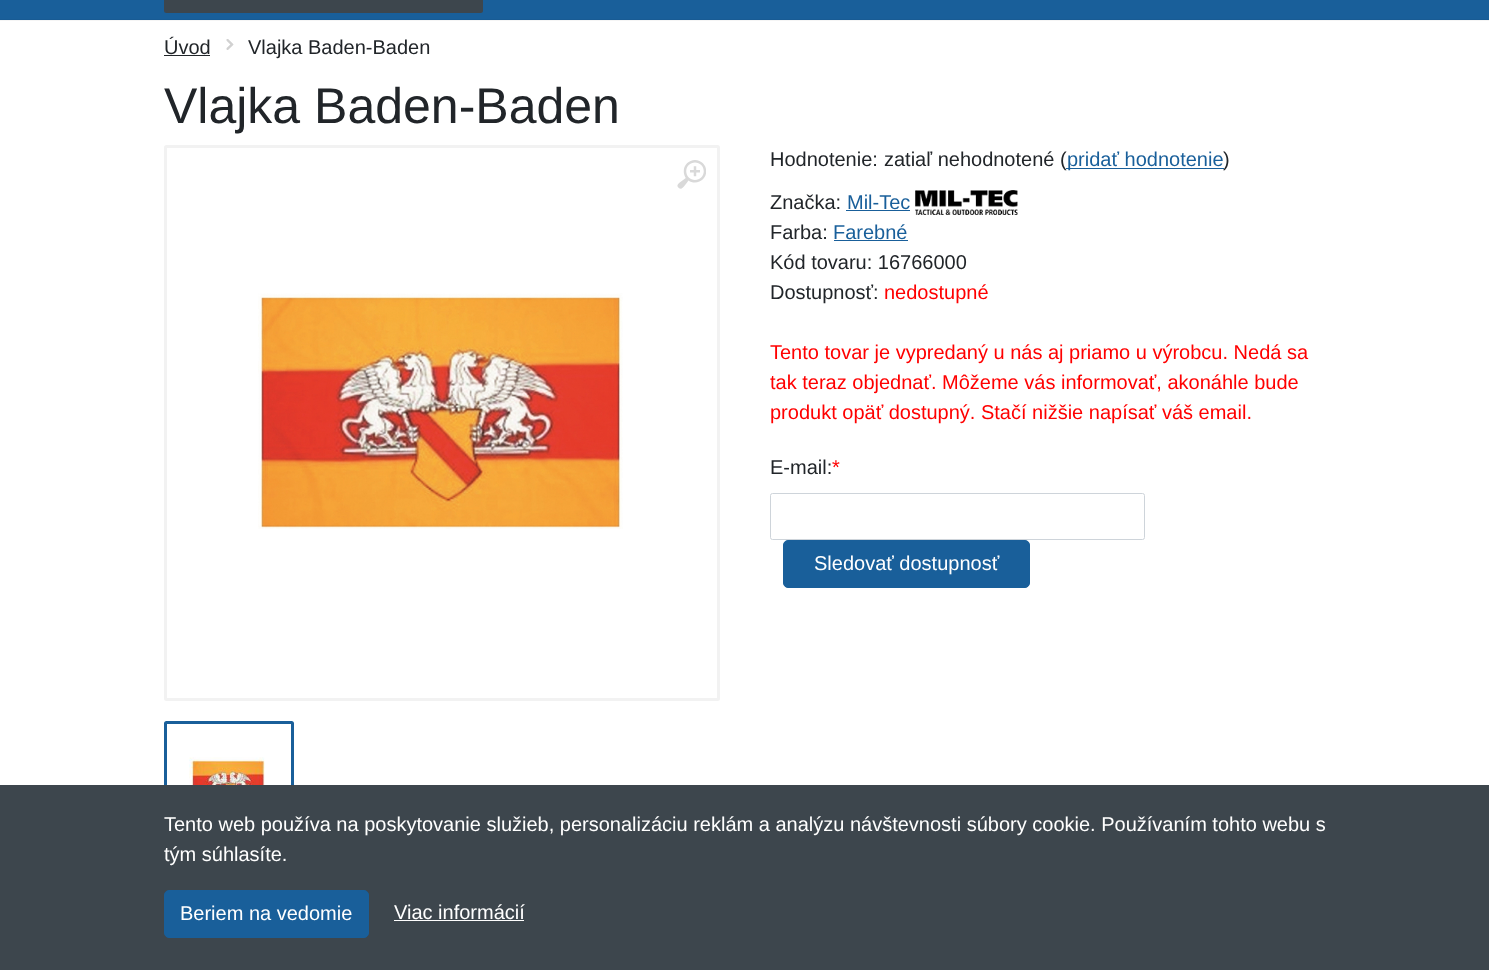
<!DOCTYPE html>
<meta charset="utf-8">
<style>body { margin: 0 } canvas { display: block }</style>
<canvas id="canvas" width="1489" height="970"></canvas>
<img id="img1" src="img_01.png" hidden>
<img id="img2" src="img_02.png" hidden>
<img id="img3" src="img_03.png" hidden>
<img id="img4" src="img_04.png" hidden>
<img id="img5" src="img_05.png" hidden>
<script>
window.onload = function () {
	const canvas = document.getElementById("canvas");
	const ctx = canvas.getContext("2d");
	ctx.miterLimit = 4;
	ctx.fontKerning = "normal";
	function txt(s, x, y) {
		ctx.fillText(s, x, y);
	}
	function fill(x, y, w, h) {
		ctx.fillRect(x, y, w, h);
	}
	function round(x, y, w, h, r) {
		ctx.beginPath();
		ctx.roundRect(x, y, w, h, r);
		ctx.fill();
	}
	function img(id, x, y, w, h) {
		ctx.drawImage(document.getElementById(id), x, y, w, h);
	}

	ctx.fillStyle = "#FFFFFF";
	fill(0, 0, 1489, 970);
	ctx.fillStyle = "#F5F5F5";
	fill(0, 20, 1489, 1);
	ctx.fillStyle = "#195F9A";
	fill(0, 0, 1489, 19);
	ctx.fillStyle = "#185B94";
	fill(0, 19, 1489, 1);
	ctx.fillStyle = "#3D464D";
	round(164, -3, 319, 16, 2.5);
	ctx.fillStyle = "#212529";
	fill(164, 55, 46, 1);
	img("img1", 226, 39, 8, 11);
	ctx.beginPath();
	ctx.roundRect(165.5, 146.5, 553, 553, 1);
	ctx.strokeStyle = "#F2F2F2";
	ctx.lineWidth = 3;
	ctx.stroke();
	img("img2", 677, 160, 29, 29);
	img("img3", 258, 293, 365, 236);
	ctx.beginPath();
	ctx.roundRect(165.5, 722.5, 127, 127, 1);
	ctx.strokeStyle = "#195F9A";
	ctx.stroke();
	img("img4", 189, 757, 76, 28);
	ctx.fillStyle = "#195F9A";
	fill(846, 210, 64, 1);
	img("img5", 915, 190, 103, 25);
	fill(834, 240, 74, 1);
	ctx.beginPath();
	ctx.roundRect(770.5, 493.5, 374, 46, 2);
	ctx.strokeStyle = "#CED4DA";
	ctx.lineWidth = 1;
	ctx.stroke();
	ctx.beginPath();
	ctx.roundRect(783.5, 540.5, 246, 47, 4.5);
	ctx.fill();
	ctx.strokeStyle = "#195F9A";
	ctx.stroke();
	ctx.fillStyle = "#3D464D";
	fill(0, 785, 1489, 185);
	ctx.fillStyle = "#195F9A";
	ctx.beginPath();
	ctx.roundRect(164.5, 890.5, 204, 47, 4.5);
	ctx.fill();
	ctx.stroke();
	ctx.fillStyle = "#FFFFFF";
	fill(394, 920, 130, 1);
	ctx.font = "20px Liberation Sans";
	ctx.fillStyle = "#212529";
	txt("Úvod", 164, 54);
	txt("Vlajka Baden-Baden", 248, 54);
	ctx.font = "50px Liberation Sans";
	txt("Vlajka Baden-Baden", 164, 123);
	ctx.font = "20px Liberation Sans";
	txt("Hodnotenie:", 770, 166);
	txt("zatiaľ nehodnotené (", 884, 166);
	ctx.fillStyle = "#195F9A";
	fill(1066, 168, 158, 1);
	txt("pridať hodnotenie", 1067, 166);
	ctx.fillStyle = "#212529";
	txt(")", 1223, 166);
	txt("Značka:", 770, 209);
	ctx.fillStyle = "#195F9A";
	txt("Mil-Tec", 847, 209);
	ctx.fillStyle = "#212529";
	txt("Farba:", 770, 239);
	ctx.fillStyle = "#195F9A";
	txt("Farebné", 833, 239);
	ctx.fillStyle = "#212529";
	txt("Kód tovaru: 16766000", 770, 269);
	txt("Dostupnosť:", 770, 299);
	ctx.fillStyle = "#FF0000";
	txt("nedostupné", 884, 299);
	txt("Tento tovar je vypredaný u nás aj priamo u výrobcu. Nedá sa", 770, 359);
	txt("tak teraz objednať. Môžeme vás informovať, akonáhle bude", 770, 389);
	txt("produkt opäť dostupný. Stačí nižšie napísať váš email.", 770, 419);
	ctx.fillStyle = "#212529";
	txt("E-mail:", 770, 474);
	ctx.fillStyle = "#FF0000";
	txt("*", 832, 474);
	ctx.fillStyle = "#FFFFFF";
	txt("Sledovať dostupnosť", 814, 570);
	txt("Tento web používa na poskytovanie služieb, personalizáciu reklám a analýzu návštevnosti súbory cookie. Používaním tohto webu s", 164, 831);
	txt("tým súhlasíte.", 164, 861);
	txt("Beriem na vedomie", 180, 920);
	txt("Viac informácií", 394, 919);
};
</script>
